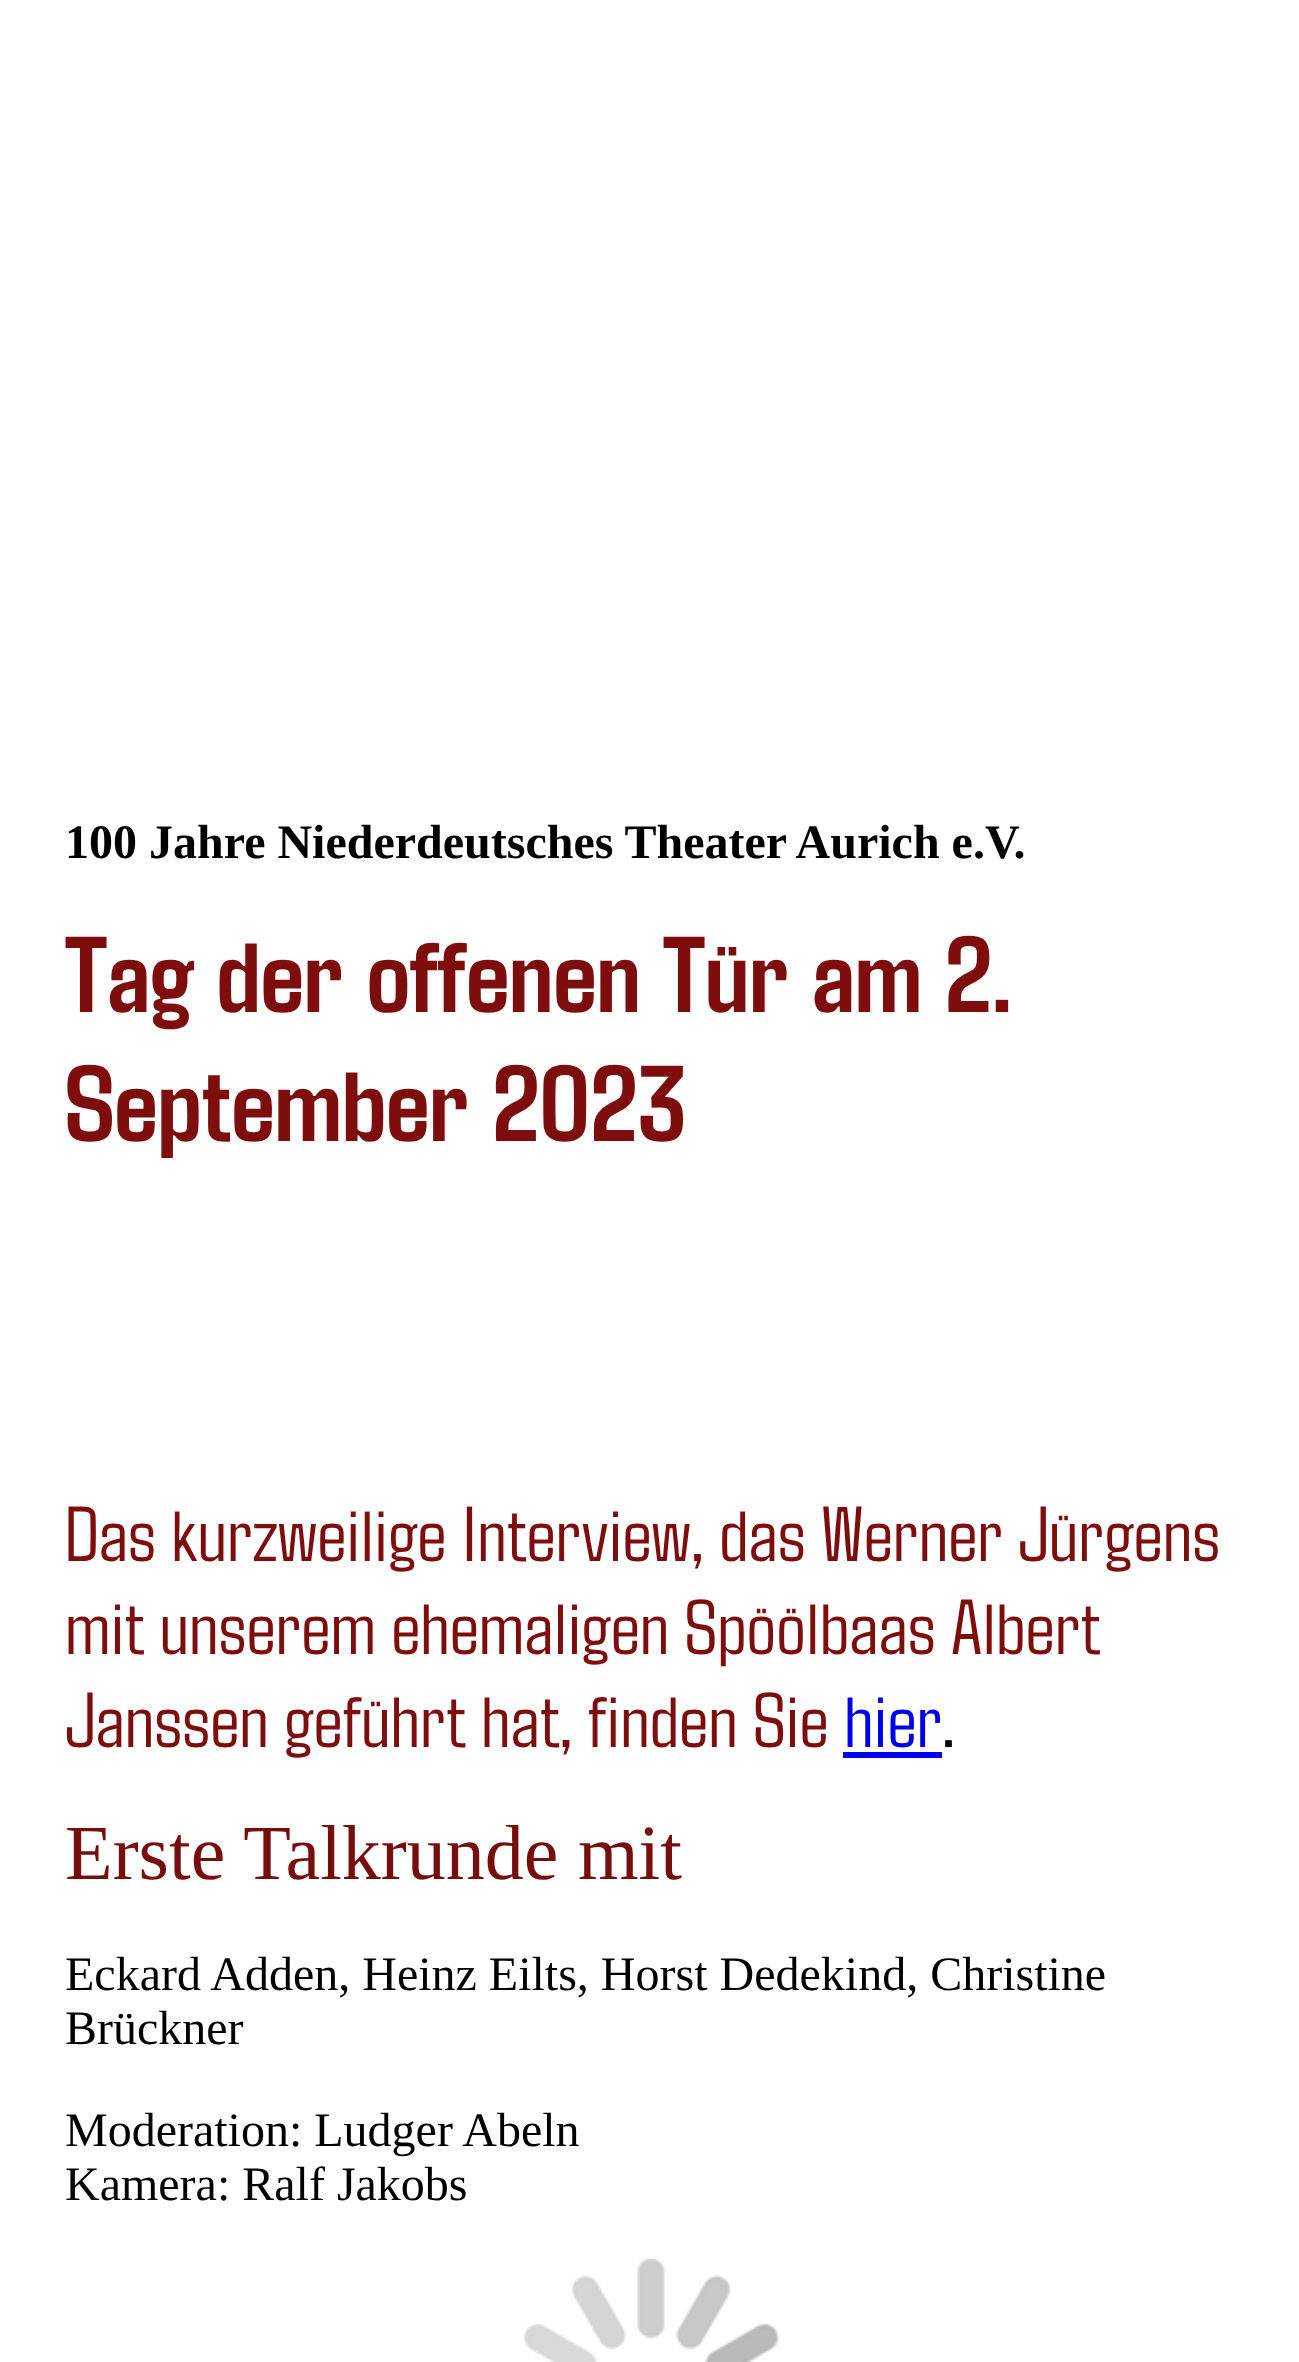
<!DOCTYPE html>
<meta charset="utf-8">
<style>body { margin: 0 } canvas { display: block }</style>
<canvas id="canvas" width="1299" height="2362"></canvas>
<img id="img1" src="img_01.png" hidden>
<script>
window.onload = function () {
	const canvas = document.getElementById("canvas");
	const ctx = canvas.getContext("2d");
	ctx.miterLimit = 4;
	ctx.fontKerning = "normal";
	function txt(s, x, y) {
		ctx.fillText(s, x, y);
	}
	function fill(x, y, w, h) {
		ctx.fillRect(x, y, w, h);
	}
	function img(id, x, y, w, h) {
		ctx.drawImage(document.getElementById(id), x, y, w, h);
	}

	ctx.fillStyle = "#FFFFFF";
	fill(0, 0, 1299, 2362);
	ctx.fillStyle = "#0000EE";
	fill(843, 1752, 99, 6);
	img("img1", 522, 2259, 258, 103);
	ctx.font = "bold 48px Liberation Serif";
	ctx.fillStyle = "#000000";
	txt("100 Jahre Niederdeutsches Theater Aurich e.V.", 65, 858);
	ctx.font = "bold 108px Agdasima";
	ctx.fillStyle = "#7E0D0D";
	txt("Tag der offenen Tür am 2.", 65, 1012);
	txt("September 2023", 65, 1141);
	ctx.font = "78px Agdasima";
	txt("Das kurzweilige Interview, das Werner Jürgens", 65, 1561);
	txt("mit unserem ehemaligen Spöölbaas Albert", 65, 1654);
	txt("Janssen geführt hat, finden Sie", 65, 1747);
	ctx.fillStyle = "#0000EE";
	txt("hier", 844, 1747);
	ctx.fillStyle = "#000000";
	txt(".", 942, 1747);
	ctx.font = "78px Liberation Serif";
	ctx.fillStyle = "#770E0E";
	txt("Erste Talkrunde mit", 65, 1879);
	ctx.font = "48px Liberation Serif";
	ctx.fillStyle = "#000000";
	txt("Eckard Adden, Heinz Eilts, Horst Dedekind, Christine", 65, 1990);
	txt("Brückner", 65, 2044);
	txt("Moderation: Ludger Abeln", 65, 2146);
	txt("Kamera: Ralf Jakobs", 65, 2200);
};
</script>
